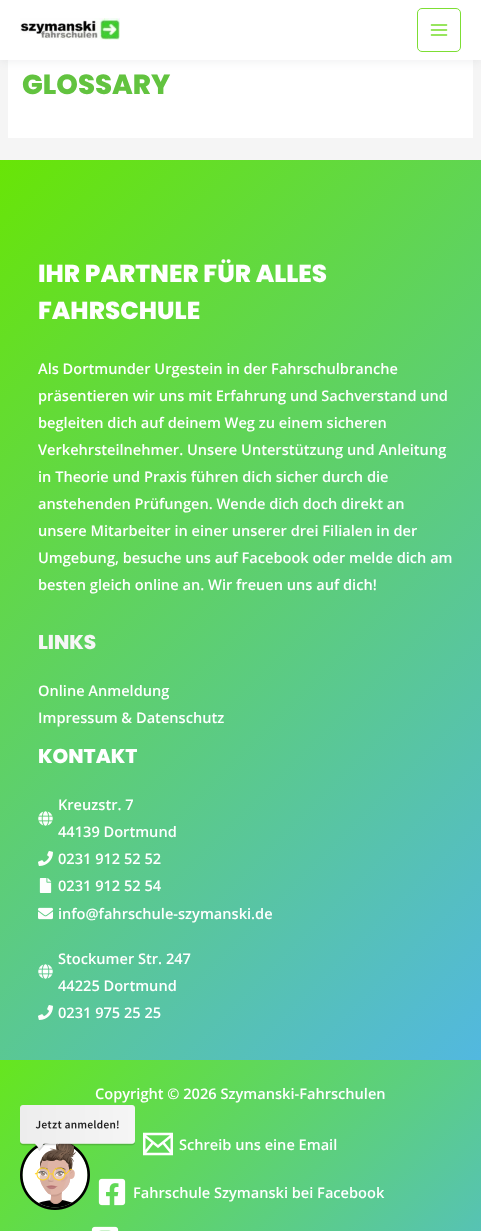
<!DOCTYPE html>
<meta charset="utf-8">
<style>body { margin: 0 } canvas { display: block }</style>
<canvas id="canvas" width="481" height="1231"></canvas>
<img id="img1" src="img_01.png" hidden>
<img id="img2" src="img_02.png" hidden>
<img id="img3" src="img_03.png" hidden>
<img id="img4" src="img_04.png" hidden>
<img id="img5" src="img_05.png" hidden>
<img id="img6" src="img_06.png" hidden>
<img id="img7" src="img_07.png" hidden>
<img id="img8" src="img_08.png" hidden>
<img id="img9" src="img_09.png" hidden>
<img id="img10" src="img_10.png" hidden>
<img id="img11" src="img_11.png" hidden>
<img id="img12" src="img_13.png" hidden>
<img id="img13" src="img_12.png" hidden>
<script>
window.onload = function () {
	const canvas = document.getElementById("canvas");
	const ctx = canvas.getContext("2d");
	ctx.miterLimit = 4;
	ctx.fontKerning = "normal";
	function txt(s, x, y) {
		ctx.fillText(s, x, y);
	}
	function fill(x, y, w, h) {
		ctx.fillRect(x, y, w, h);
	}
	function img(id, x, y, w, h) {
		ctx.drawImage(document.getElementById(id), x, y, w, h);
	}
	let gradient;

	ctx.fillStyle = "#F5F5F5";
	fill(0, 0, 481, 1231);
	ctx.fillStyle = "#FFFFFF";
	fill(8, 60, 465, 78);
	ctx.fillStyle = "rgba(36, 50, 66, 0.07)";
	ctx.filter = "blur(5px)";
	ctx.beginPath();
	ctx.rect(0, 2, 481, 60);
	ctx.fill();
	ctx.filter = "none";
	ctx.fillStyle = "#FFFFFF";
	fill(0, 0, 481, 60);
	img("img1", 20, 18, 100, 22);
	ctx.beginPath();
	ctx.roundRect(417.5, 8.5, 43, 43, 4.5);
	ctx.strokeStyle = "#7DDE34";
	ctx.stroke();
	img("img2", 430, 24, 18, 12);
	gradient = ctx.createLinearGradient(-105, 265, 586, 955);
	gradient.addColorStop(0, "#68E506");
	gradient.addColorStop(1, "#52B8E0");
	ctx.fillStyle = gradient;
	fill(0, 160, 481, 900);
	img("img3", 38, 811, 15, 15);
	img("img4", 38, 851, 15, 15);
	img("img5", 39, 878, 13, 15);
	img("img6", 38, 907, 15, 13);
	img("img7", 38, 964, 15, 15);
	img("img8", 38, 1005, 15, 15);
	gradient = ctx.createLinearGradient(30, 1030, 451, 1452);
	gradient.addColorStop(0, "#66E61E");
	gradient.addColorStop(1, "#52B8E0");
	ctx.fillStyle = gradient;
	fill(0, 1060, 481, 171);
	img("img9", 143, 1132, 30, 24);
	img("img10", 98, 1178, 28, 28);
	img("img11", 91, 1226, 28, 5);
	img("img12", 20, 1143, 70, 67);
	img("img13", 20, 1105, 115, 46);
	ctx.font = "800 27.5px Poppins";
	ctx.fillStyle = "#62C33F";
	txt("GLOSSARY", 22, 94);
	ctx.font = "800 24.6px Poppins";
	ctx.fillStyle = "#FFFFFF";
	txt("IHR PARTNER FÜR ALLES", 38, 282);
	txt("FAHRSCHULE", 38, 319);
	ctx.font = "600 14.6px Open Sans";
	txt("Als Dortmunder Urgestein in der Fahrschulbranche", 38, 374);
	txt("präsentieren wir uns mit Erfahrung und Sachverstand und", 38, 401);
	txt("begleiten dich auf deinem Weg zu einem sicheren", 38, 428);
	txt("Verkehrsteilnehmer. Unsere Unterstützung und Anleitung", 38, 455);
	txt("in Theorie und Praxis führen dich sicher durch die", 38, 482);
	txt("anstehenden Prüfungen. Wende dich doch direkt an", 38, 509);
	txt("unsere Mitarbeiter in einer unserer drei Filialen in der", 38, 536);
	txt("Umgebung, besuche uns auf Facebook oder melde dich am", 38, 563);
	txt("besten gleich online an. Wir freuen uns auf dich!", 38, 590);
	ctx.font = "800 20px Poppins";
	ctx.fillStyle = "#F6F6F6";
	txt("LINKS", 38, 649);
	ctx.font = "600 14.6px Open Sans";
	ctx.fillStyle = "#FFFFFF";
	txt("Online Anmeldung", 38, 696);
	txt("Impressum & Datenschutz", 38, 723);
	ctx.font = "800 20px Poppins";
	txt("KONTAKT", 38, 763);
	ctx.font = "600 14.6px Open Sans";
	txt("Kreuzstr. 7", 58, 810);
	txt("44139 Dortmund", 58, 837);
	txt("0231 912 52 52", 58, 864);
	txt("0231 912 52 54", 58, 891);
	txt("info@fahrschule-szymanski.de", 58, 919);
	txt("Stockumer Str. 247", 58, 964);
	txt("44225 Dortmund", 58, 991);
	txt("0231 975 25 25", 58, 1018);
	txt("Copyright © 2026 Szymanski-Fahrschulen", 95, 1099);
	txt("Schreib uns eine Email", 179, 1150);
	txt("Fahrschule Szymanski bei Facebook", 133, 1198);
};
</script>
